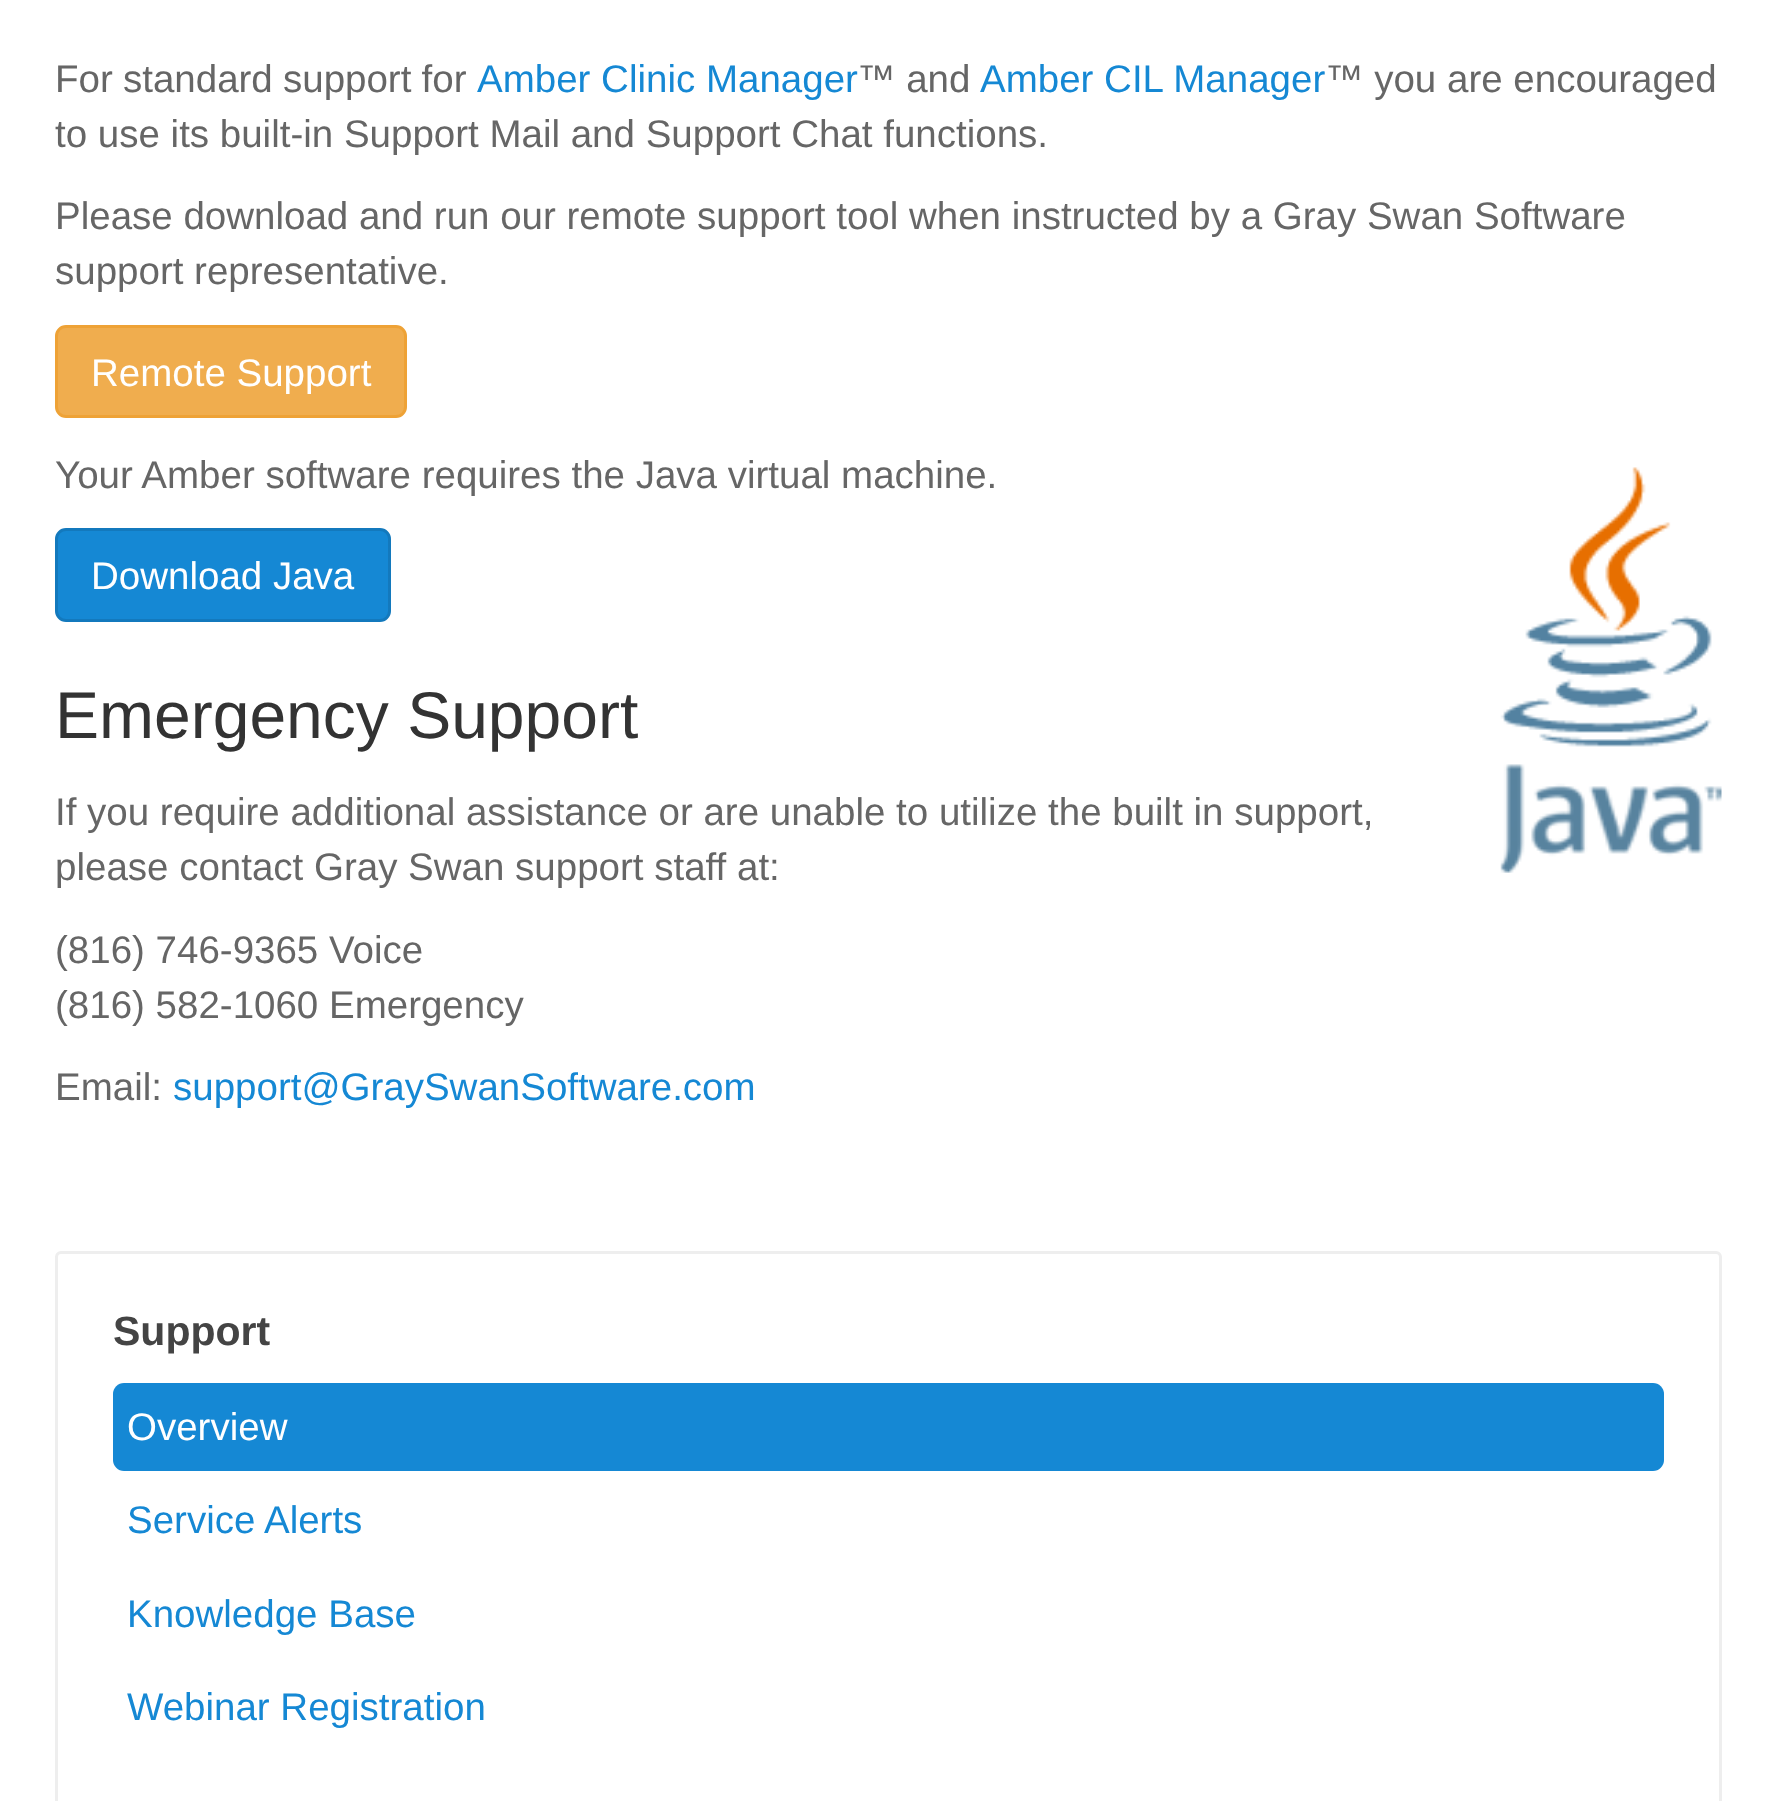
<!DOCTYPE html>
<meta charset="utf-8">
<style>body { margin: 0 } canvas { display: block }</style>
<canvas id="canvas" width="1775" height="1801"></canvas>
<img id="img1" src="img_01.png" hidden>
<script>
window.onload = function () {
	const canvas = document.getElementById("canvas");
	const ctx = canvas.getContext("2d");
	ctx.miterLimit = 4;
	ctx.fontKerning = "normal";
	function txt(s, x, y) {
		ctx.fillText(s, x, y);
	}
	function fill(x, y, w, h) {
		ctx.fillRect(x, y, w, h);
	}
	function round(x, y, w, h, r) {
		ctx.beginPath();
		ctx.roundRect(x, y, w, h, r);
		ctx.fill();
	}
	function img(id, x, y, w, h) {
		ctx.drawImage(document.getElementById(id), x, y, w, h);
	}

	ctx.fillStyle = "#FFFFFF";
	fill(0, 0, 1775, 1801);
	ctx.fillStyle = "#F0AD4E";
	ctx.beginPath();
	ctx.roundRect(56.5, 326.5, 349, 90, 9.5);
	ctx.fill();
	ctx.strokeStyle = "#EEA236";
	ctx.lineWidth = 3;
	ctx.stroke();
	img("img1", 1500, 467, 222, 406);
	ctx.fillStyle = "#1588D4";
	ctx.beginPath();
	ctx.roundRect(56.5, 529.5, 333, 91, 9.5);
	ctx.fill();
	ctx.strokeStyle = "#1379BD";
	ctx.stroke();
	ctx.beginPath();
	ctx.roundRect(56.5, 1252.5, 1664, 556, 4.5);
	ctx.strokeStyle = "#EEEEEE";
	ctx.stroke();
	round(113, 1383, 1551, 88, 11);
	ctx.wordSpacing = "-0.5px";
	ctx.font = "38.5px Liberation Sans";
	ctx.fillStyle = "#666666";
	txt("For standard support for", 55, 92);
	ctx.wordSpacing = "0px";
	ctx.fillStyle = "#1588D4";
	txt("Amber Clinic Manager", 477, 92);
	ctx.fillStyle = "#666666";
	txt("™ and", 857, 92);
	ctx.fillStyle = "#1588D4";
	txt("Amber CIL Manager", 980, 92);
	ctx.fillStyle = "#666666";
	txt("™ you are encouraged", 1325, 92);
	txt("to use its built-in Support Mail and Support Chat functions.", 55, 147);
	txt("Please download and run our remote support tool when instructed by a Gray Swan Software", 55, 229);
	txt("support representative.", 55, 284);
	ctx.fillStyle = "#FFFFFF";
	txt("Remote Support", 91, 386);
	ctx.fillStyle = "#666666";
	txt("Your Amber software requires the Java virtual machine.", 55, 488);
	ctx.fillStyle = "#FFFFFF";
	txt("Download Java", 91, 589);
	ctx.font = "66px Liberation Sans";
	ctx.fillStyle = "#333333";
	txt("Emergency Support", 55, 738);
	ctx.font = "38.5px Liberation Sans";
	ctx.fillStyle = "#666666";
	txt("If you require additional assistance or are unable to utilize the built in support,", 55, 825);
	txt("please contact Gray Swan support staff at:", 55, 880);
	txt("(816) 746-9365 Voice", 55, 963);
	txt("(816) 582-1060 Emergency", 55, 1018);
	txt("Email:", 55, 1100);
	ctx.fillStyle = "#1588D4";
	txt("support@GraySwanSoftware.com", 173, 1100);
	ctx.font = "bold 41px Liberation Sans";
	ctx.fillStyle = "#444444";
	txt("Support", 113, 1345);
	ctx.font = "38.5px Liberation Sans";
	ctx.fillStyle = "#FFFFFF";
	txt("Overview", 127, 1440);
	ctx.fillStyle = "#1588D4";
	txt("Service Alerts", 127, 1533);
	txt("Knowledge Base", 127, 1627);
	txt("Webinar Registration", 127, 1720);
};
</script>
